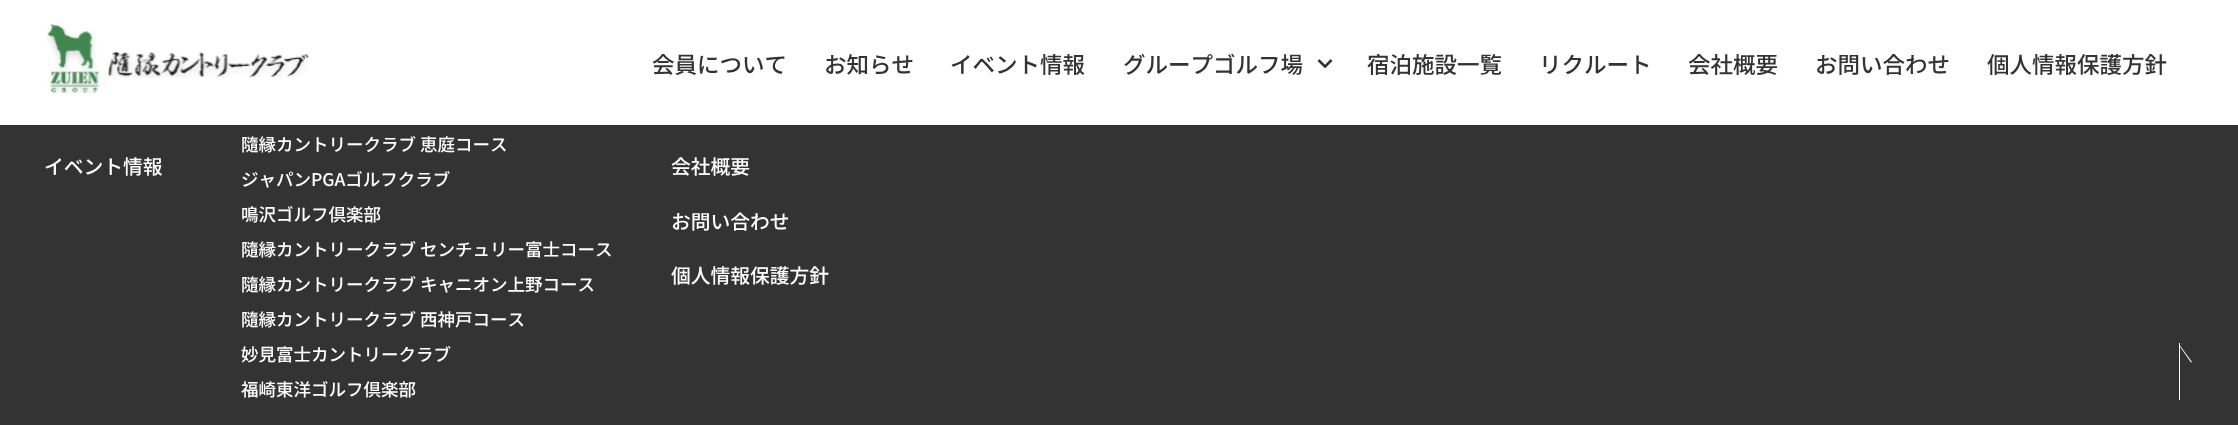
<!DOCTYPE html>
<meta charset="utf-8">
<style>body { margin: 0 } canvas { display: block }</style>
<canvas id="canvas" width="2238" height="425"></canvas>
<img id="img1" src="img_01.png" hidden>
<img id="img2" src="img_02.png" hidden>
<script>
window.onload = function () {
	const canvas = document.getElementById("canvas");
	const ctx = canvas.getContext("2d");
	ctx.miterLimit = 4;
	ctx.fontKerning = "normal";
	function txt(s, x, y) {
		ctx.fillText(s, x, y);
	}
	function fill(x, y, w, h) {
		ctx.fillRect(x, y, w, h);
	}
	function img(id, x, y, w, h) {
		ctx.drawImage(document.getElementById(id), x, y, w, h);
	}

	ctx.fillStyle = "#333333";
	fill(0, 0, 2238, 425);
	ctx.fillStyle = "#FFFFFF";
	fill(0, 0, 2238, 125);
	img("img1", 47, 24, 262, 70);
	img("img2", 1317, 59, 16, 10);
	fill(2179, 343, 1, 57);
	ctx.beginPath();
	ctx.moveTo(2191, 362.5);
	ctx.lineTo(2179.5, 346);
	ctx.lineTo(2180, 345.5);
	ctx.lineTo(2192, 362);
	ctx.closePath();
	ctx.fill();
	ctx.font = "500 22.5px Noto Sans JP";
	ctx.fillStyle = "#333333";
	txt("会員について", 652, 73);
	txt("お知らせ", 824, 73);
	txt("イベント情報", 950, 73);
	txt("グループゴルフ場", 1123, 73);
	txt("宿泊施設一覧", 1367, 73);
	txt("リクルート", 1539, 73);
	txt("会社概要", 1688, 73);
	txt("お問い合わせ", 1815, 73);
	txt("個人情報保護方針", 1987, 73);
	ctx.font = "500 19.75px Noto Sans JP";
	ctx.fillStyle = "#FFFFFF";
	txt("イベント情報", 44, 174);
	ctx.font = "500 17.5px Noto Sans JP";
	txt("隨縁カントリークラブ 恵庭コース", 241, 151);
	txt("ジャパンPGAゴルフクラブ", 241, 186);
	txt("鳴沢ゴルフ倶楽部", 241, 221);
	txt("隨縁カントリークラブ センチュリー富士コース", 241, 256);
	txt("隨縁カントリークラブ キャニオン上野コース", 241, 291);
	txt("隨縁カントリークラブ 西神戸コース", 241, 326);
	txt("妙見富士カントリークラブ", 241, 361);
	txt("福崎東洋ゴルフ倶楽部", 241, 396);
	ctx.font = "500 19.75px Noto Sans JP";
	txt("会社概要", 671, 174);
	txt("お問い合わせ", 671, 229);
	txt("個人情報保護方針", 671, 283);
};
</script>
